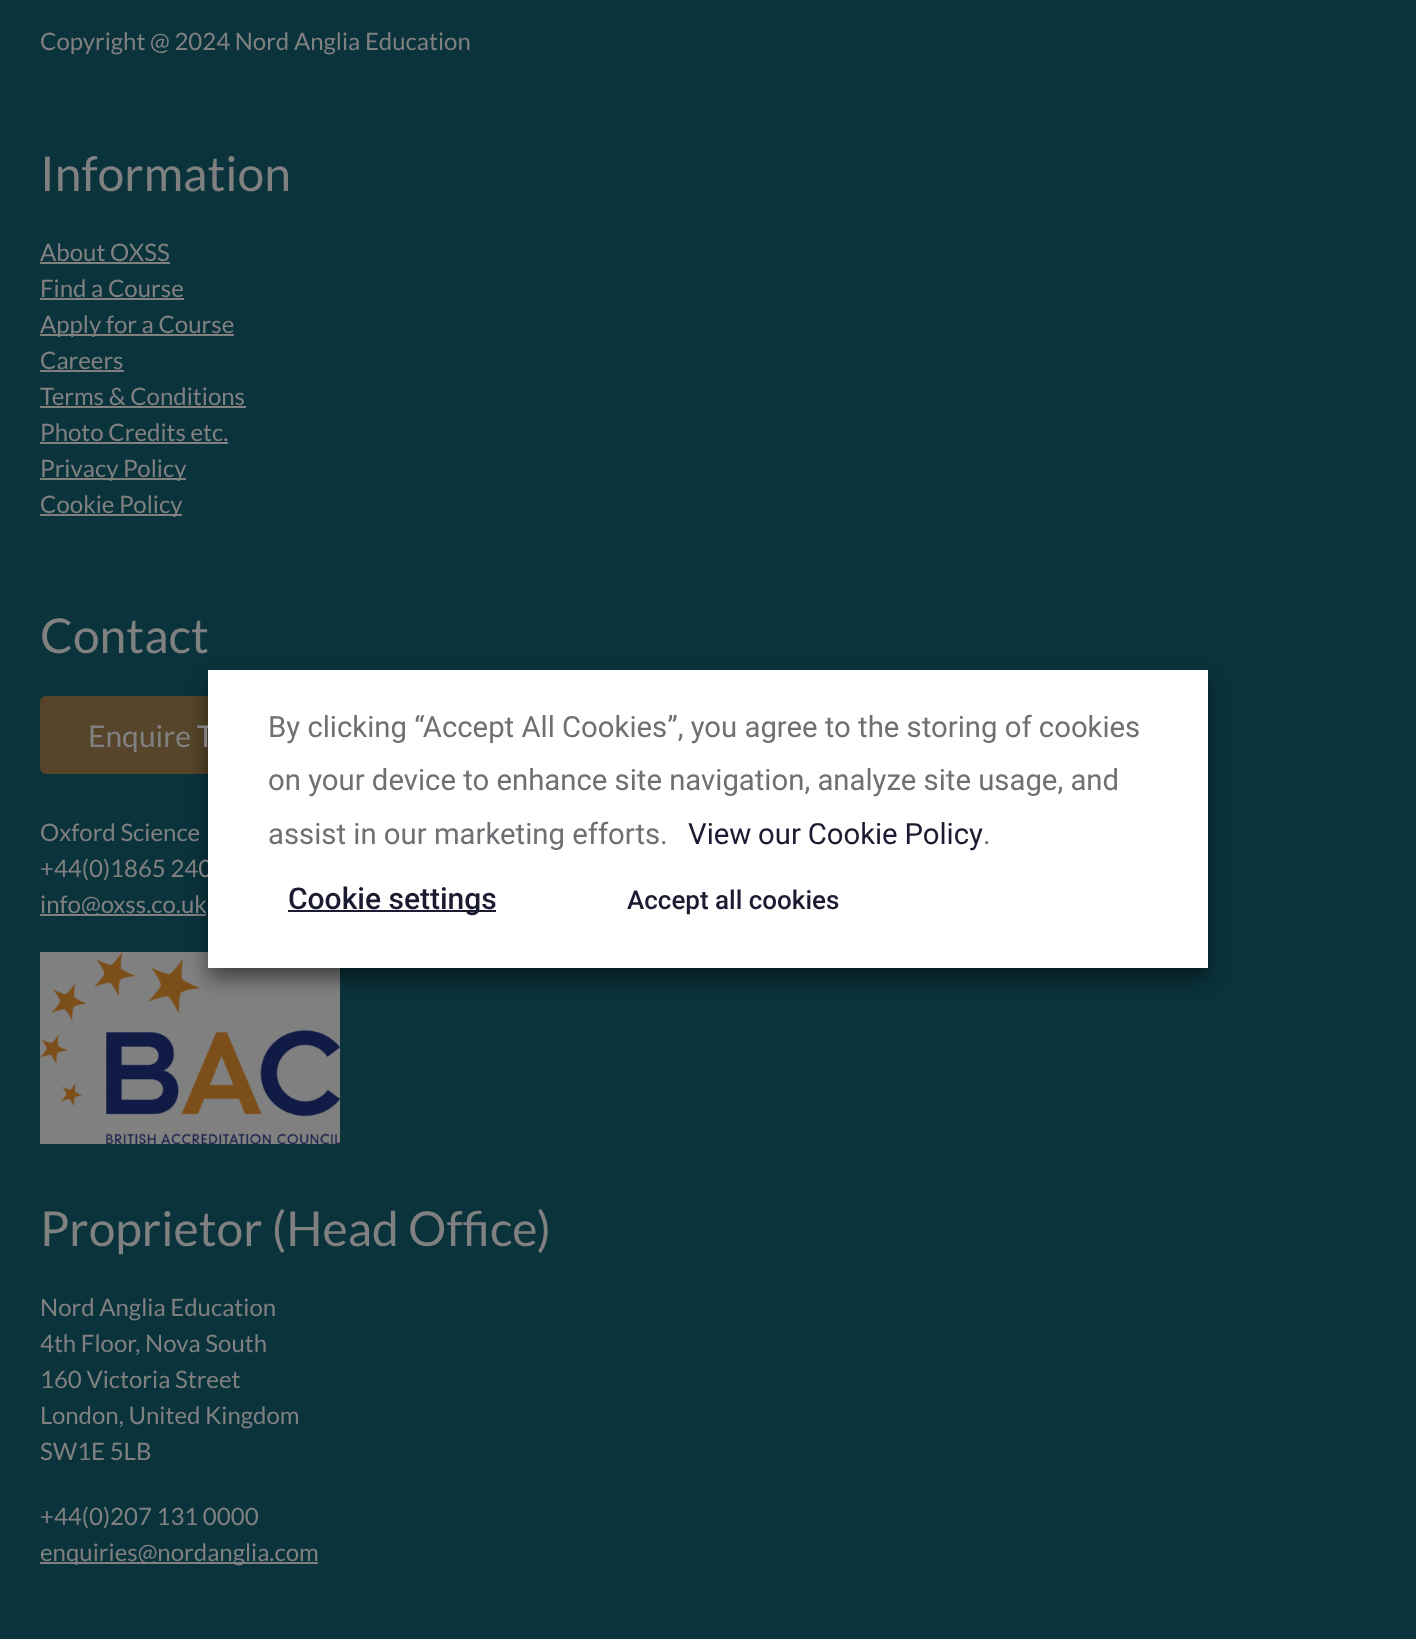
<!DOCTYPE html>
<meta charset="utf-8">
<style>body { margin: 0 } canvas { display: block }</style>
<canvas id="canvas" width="1416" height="1639"></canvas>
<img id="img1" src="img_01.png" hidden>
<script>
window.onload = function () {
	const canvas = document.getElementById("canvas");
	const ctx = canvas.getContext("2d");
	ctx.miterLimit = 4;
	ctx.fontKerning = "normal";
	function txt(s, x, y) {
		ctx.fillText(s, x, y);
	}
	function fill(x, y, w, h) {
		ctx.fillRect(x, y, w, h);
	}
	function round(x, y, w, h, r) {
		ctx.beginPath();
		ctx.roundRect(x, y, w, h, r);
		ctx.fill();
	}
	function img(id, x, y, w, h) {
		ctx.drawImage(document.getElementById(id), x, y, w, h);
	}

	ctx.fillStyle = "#0A333C";
	fill(0, 0, 1416, 1639);
	ctx.fillStyle = "#808080";
	fill(40, 262, 130, 2);
	fill(40, 298, 144, 2);
	fill(40, 334, 194, 2);
	fill(40, 370, 84, 2);
	fill(40, 406, 206, 2);
	fill(40, 442, 188, 2);
	fill(40, 478, 146, 2);
	fill(40, 514, 142, 2);
	ctx.fillStyle = "#56452A";
	round(40, 696, 282, 78, 6);
	ctx.fillStyle = "#808080";
	fill(40, 914, 166, 2);
	img("img1", 40, 952, 300, 192);
	fill(40, 1562, 278, 2);
	ctx.fillStyle = "rgba(0, 0, 0, 0.5)";
	ctx.filter = "blur(10px)";
	ctx.beginPath();
	ctx.rect(208, 680, 1000, 298);
	ctx.fill();
	ctx.filter = "none";
	ctx.font = "24px Lato";
	ctx.fillStyle = "#808080";
	txt("Copyright @ 2024 Nord Anglia Education", 40, 50);
	ctx.font = "48px Lato";
	txt("Information", 40, 191);
	ctx.font = "24px Lato";
	txt("About OXSS", 40, 261);
	txt("Find a Course", 40, 297);
	txt("Apply for a Course", 40, 333);
	txt("Careers", 40, 369);
	txt("Terms & Conditions", 40, 405);
	txt("Photo Credits etc.", 40, 441);
	txt("Privacy Policy", 40, 477);
	txt("Cookie Policy", 40, 513);
	ctx.font = "48px Lato";
	txt("Contact", 40, 653);
	ctx.font = "30px Lato";
	txt("Enquire T", 88, 747);
	ctx.font = "24px Lato";
	txt("Oxford Science", 40, 841);
	txt("+44(0)1865 240", 40, 877);
	txt("info@oxss.co.uk", 40, 913);
	ctx.font = "48px Lato";
	txt("Proprietor (Head Office)", 40, 1246);
	ctx.font = "24px Lato";
	txt("Nord Anglia Education", 40, 1316);
	txt("4th Floor, Nova South", 40, 1352);
	txt("160 Victoria Street", 40, 1388);
	txt("London, United Kingdom", 40, 1424);
	txt("SW1E 5LB", 40, 1460);
	txt("+44(0)207 131 0000", 40, 1525);
	txt("enquiries@nordanglia.com", 40, 1561);
	ctx.fillStyle = "#FFFFFF";
	fill(208, 670, 1000, 298);
	ctx.font = "29.3px Roboto";
	ctx.fillStyle = "#707074";
	txt("By clicking “Accept All Cookies”, you agree to the storing of cookies", 268, 737);
	txt("on your device to enhance site navigation, analyze site usage, and", 268, 790);
	txt("assist in our marketing efforts.", 268, 844);
	ctx.wordSpacing = "-0.5px";
	ctx.fillStyle = "#1B1B31";
	txt("View our Cookie Policy", 688, 844);
	ctx.wordSpacing = "0px";
	ctx.fillStyle = "#707074";
	txt(".", 983, 844);
	ctx.fillStyle = "#1B1B31";
	fill(288, 910, 208, 2);
	ctx.font = "500 30px Roboto";
	txt("Cookie settings", 288, 909);
	ctx.font = "500 26px Roboto";
	txt("Accept all cookies", 627, 909);
};
</script>
